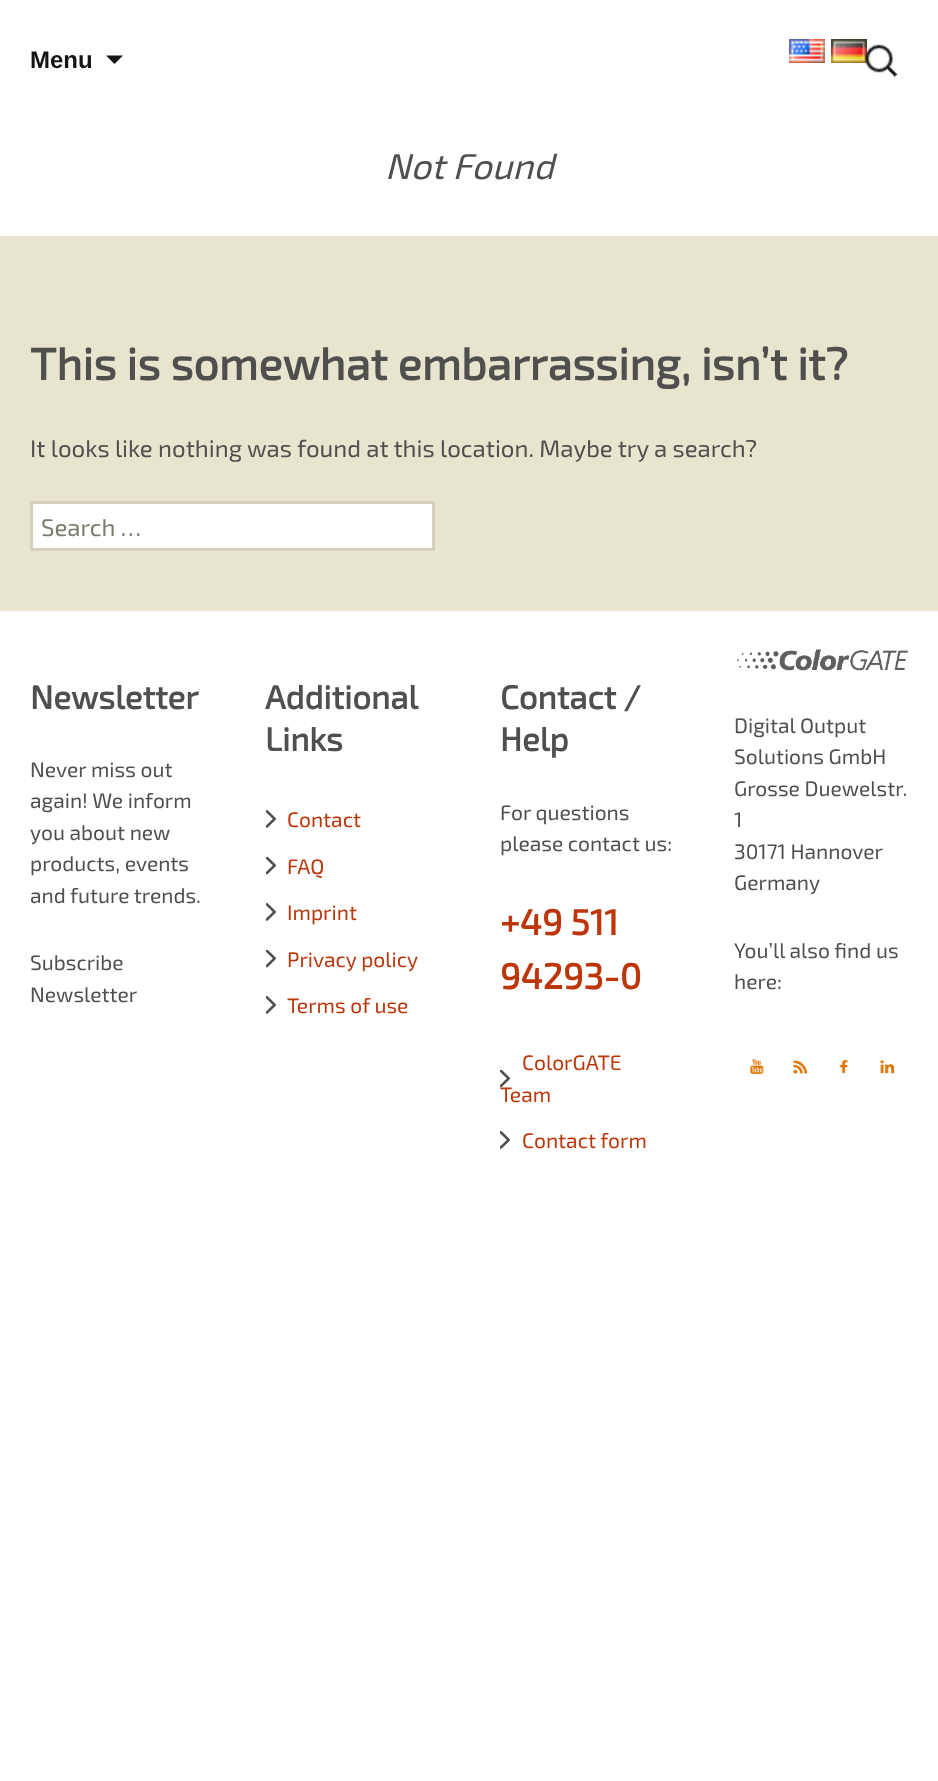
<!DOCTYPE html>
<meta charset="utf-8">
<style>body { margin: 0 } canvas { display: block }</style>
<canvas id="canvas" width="938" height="1781"></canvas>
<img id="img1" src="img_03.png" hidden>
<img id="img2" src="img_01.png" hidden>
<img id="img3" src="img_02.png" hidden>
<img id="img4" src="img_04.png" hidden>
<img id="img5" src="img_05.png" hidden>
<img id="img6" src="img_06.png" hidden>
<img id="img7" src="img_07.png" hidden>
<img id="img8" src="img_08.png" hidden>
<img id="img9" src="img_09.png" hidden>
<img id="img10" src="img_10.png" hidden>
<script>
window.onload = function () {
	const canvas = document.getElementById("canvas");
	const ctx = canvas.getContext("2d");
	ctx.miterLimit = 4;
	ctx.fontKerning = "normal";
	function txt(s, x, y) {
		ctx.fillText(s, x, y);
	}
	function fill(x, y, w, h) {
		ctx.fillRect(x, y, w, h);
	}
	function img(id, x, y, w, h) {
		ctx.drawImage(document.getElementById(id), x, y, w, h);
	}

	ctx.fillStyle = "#FFFFFF";
	fill(0, 0, 938, 1781);
	ctx.fillStyle = "#141412";
	ctx.beginPath();
	ctx.moveTo(106, 55.5);
	ctx.lineTo(114.5, 64);
	ctx.lineTo(123, 55.5);
	ctx.closePath();
	ctx.fill();
	img("img1", 831, 39, 36, 24);
	img("img2", 865, 44, 33, 33);
	img("img3", 789, 39, 36, 24);
	ctx.fillStyle = "#E8E5CE";
	fill(0, 236, 938, 375);
	ctx.fillStyle = "#FFFFFF";
	ctx.beginPath();
	ctx.rect(31.5, 502.5, 402, 47);
	ctx.fill();
	ctx.strokeStyle = "#D4D0BA";
	ctx.lineWidth = 3;
	ctx.stroke();
	img("img4", 266, 810, 10, 18);
	img("img5", 266, 857, 10, 18);
	img("img4", 266, 903, 10, 18);
	img("img5", 266, 950, 10, 18);
	img("img4", 266, 996, 10, 18);
	img("img5", 500, 1070, 10, 18);
	img("img4", 500, 1131, 10, 18);
	img("img6", 737, 649, 171, 22);
	img("img7", 750, 1059, 14, 15);
	img("img8", 793, 1060, 14, 14);
	img("img9", 839, 1059, 9, 15);
	img("img10", 880, 1059, 14, 15);
	ctx.font = "bold 24px Liberation Sans";
	ctx.fillStyle = "#141412";
	txt("Menu", 30, 68);
	ctx.font = "italic 36px 'Exo 2'";
	ctx.fillStyle = "#4F4F4E";
	txt("Not Found", 385, 179);
	ctx.font = "bold 45px 'Exo 2'";
	txt("This is somewhat embarrassing, isn’t it?", 30, 380);
	ctx.font = "24px 'Exo 2'";
	txt("It looks like nothing was found at this location. Maybe try a search?", 30, 457);
	ctx.fillStyle = "#7D7B6D";
	txt("Search …", 41, 536);
	ctx.font = "bold 33px 'Exo 2'";
	ctx.fillStyle = "#4F4F4E";
	txt("Newsletter", 30, 709);
	ctx.font = "21px 'Exo 2'";
	txt("Never miss out", 30, 777);
	txt("again! We inform", 30, 808);
	txt("you about new", 30, 840);
	txt("products, events", 30, 871);
	txt("and future trends.", 30, 903);
	txt("Subscribe", 30, 970);
	txt("Newsletter", 30, 1002);
	ctx.font = "bold 33px 'Exo 2'";
	txt("Additional", 265, 709);
	txt("Links", 265, 751);
	ctx.font = "21px 'Exo 2'";
	ctx.fillStyle = "#BC360A";
	txt("Contact", 287, 827);
	txt("FAQ", 287, 874);
	txt("Imprint", 287, 920);
	txt("Privacy policy", 287, 967);
	txt("Terms of use", 287, 1013);
	ctx.font = "bold 33px 'Exo 2'";
	ctx.fillStyle = "#4F4F4E";
	txt("Contact /", 500, 709);
	txt("Help", 500, 751);
	ctx.font = "21px 'Exo 2'";
	txt("For questions", 500, 820);
	txt("please contact us:", 500, 851);
	ctx.font = "bold 36px 'Exo 2'";
	ctx.fillStyle = "#BC360A";
	txt("+49 511", 500, 935);
	txt("94293-0", 500, 989);
	ctx.font = "21px 'Exo 2'";
	txt("ColorGATE", 522, 1070);
	txt("Team", 500, 1102);
	txt("Contact form", 522, 1148);
	ctx.fillStyle = "#4F4F4E";
	txt("Digital Output", 734, 733);
	txt("Solutions GmbH", 734, 764);
	txt("Grosse Duewelstr.", 734, 796);
	txt("1", 734, 827);
	txt("30171 Hannover", 734, 859);
	txt("Germany", 734, 890);
	txt("You’ll also find us", 734, 958);
	txt("here:", 734, 989);
};
</script>
